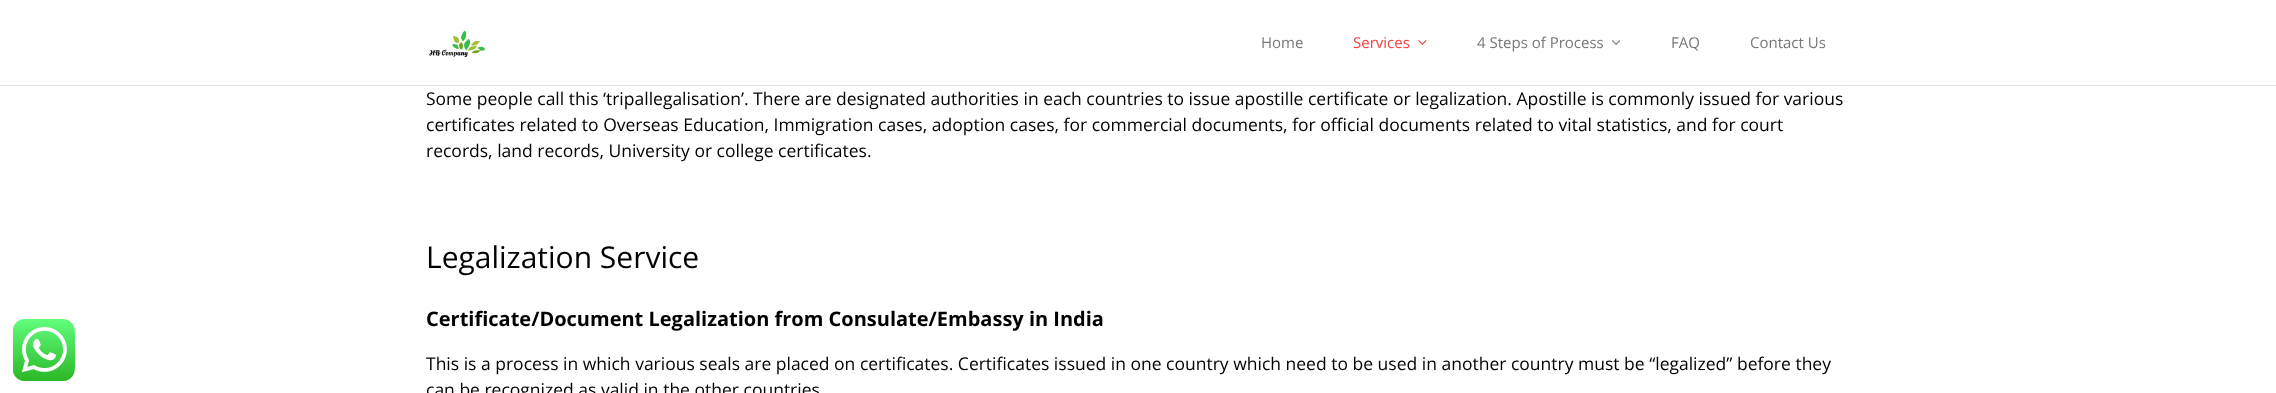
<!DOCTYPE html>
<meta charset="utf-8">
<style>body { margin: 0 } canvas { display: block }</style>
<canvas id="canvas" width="2276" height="393"></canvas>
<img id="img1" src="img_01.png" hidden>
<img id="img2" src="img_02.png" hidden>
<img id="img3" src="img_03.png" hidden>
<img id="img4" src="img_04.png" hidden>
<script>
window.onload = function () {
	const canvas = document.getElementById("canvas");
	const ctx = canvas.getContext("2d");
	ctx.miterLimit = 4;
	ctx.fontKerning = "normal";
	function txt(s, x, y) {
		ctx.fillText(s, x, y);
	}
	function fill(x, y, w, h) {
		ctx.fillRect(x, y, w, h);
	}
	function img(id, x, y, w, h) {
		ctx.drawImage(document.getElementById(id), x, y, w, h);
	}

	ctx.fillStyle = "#FFFFFF";
	fill(0, 0, 2276, 393);
	img("img1", 13, 319, 62, 62);
	ctx.fillStyle = "#E0E0E0";
	fill(0, 85, 2276, 1);
	img("img2", 429, 30, 57, 27);
	img("img3", 1418, 40, 9, 5);
	img("img4", 1612, 40, 9, 5);
	ctx.font = "15px Open Sans";
	ctx.fillStyle = "#777777";
	txt("Home", 1261, 48);
	ctx.fillStyle = "#F33F3F";
	txt("Services", 1353, 48);
	ctx.fillStyle = "#777777";
	txt("4 Steps of Process", 1477, 48);
	txt("FAQ", 1671, 48);
	txt("Contact Us", 1750, 48);
	ctx.font = "17.5px Open Sans";
	ctx.fillStyle = "#000000";
	txt("Some people call this ‘tripallegalisation’. There are designated authorities in each countries to issue apostille certificate or legalization. Apostille is commonly issued for various", 426, 105);
	txt("certificates related to Overseas Education, Immigration cases, adoption cases, for commercial documents, for official documents related to vital statistics, and for court", 426, 131);
	txt("records, land records, University or college certificates.", 426, 157);
	ctx.font = "30px Open Sans";
	txt("Legalization Service", 426, 268);
	ctx.font = "bold 20px Open Sans";
	txt("Certificate/Document Legalization from Consulate/Embassy in India", 426, 326);
	ctx.font = "17.5px Open Sans";
	txt("This is a process in which various seals are placed on certificates. Certificates issued in one country which need to be used in another country must be “legalized” before they", 426, 370);
	txt("can be recognized as valid in the other countries", 426, 396);
};
</script>
